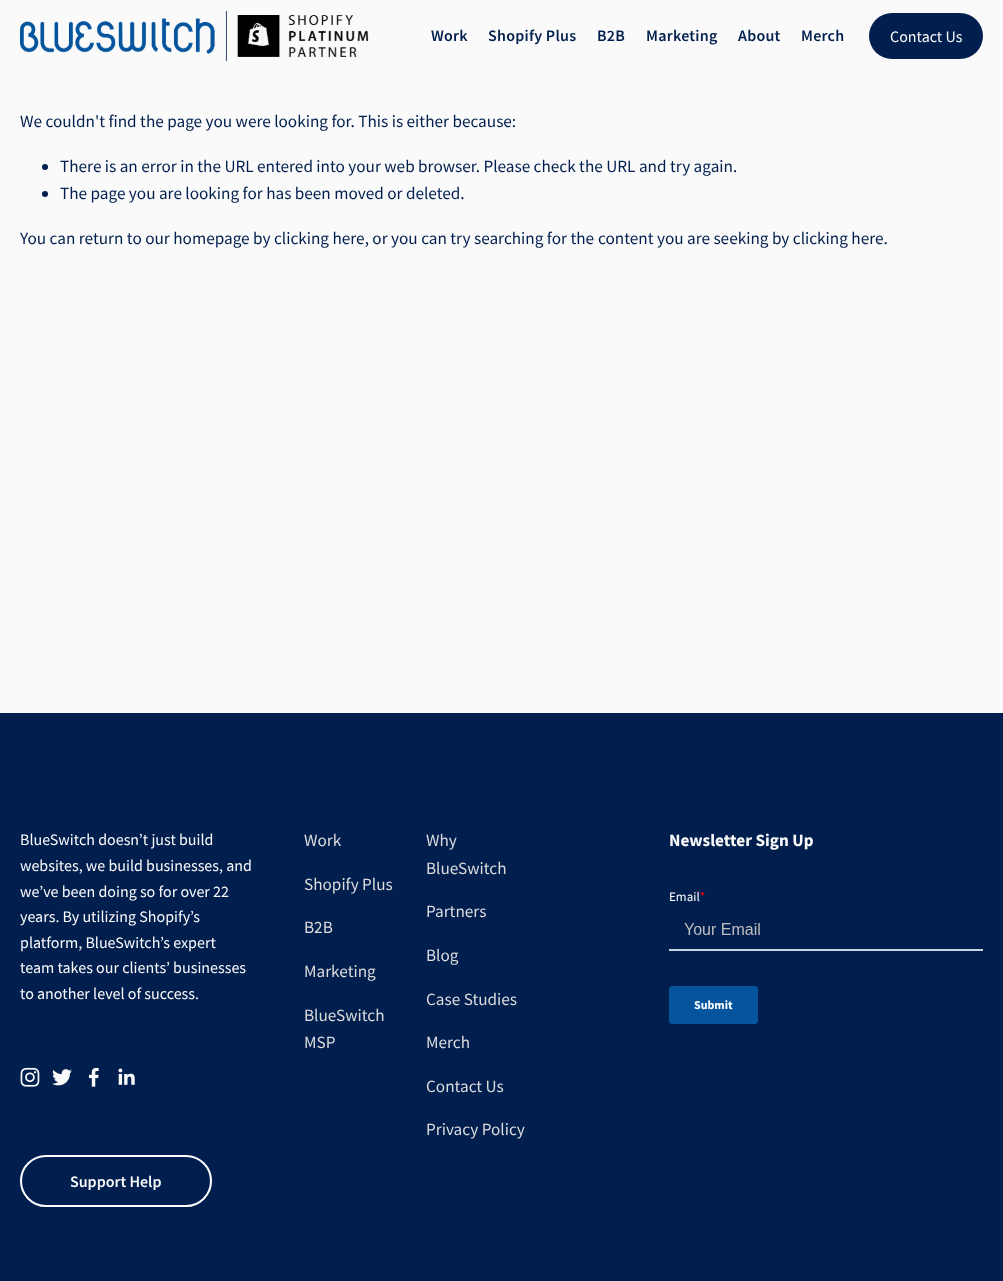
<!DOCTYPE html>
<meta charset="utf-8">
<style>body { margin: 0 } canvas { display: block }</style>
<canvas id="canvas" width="1003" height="1281"></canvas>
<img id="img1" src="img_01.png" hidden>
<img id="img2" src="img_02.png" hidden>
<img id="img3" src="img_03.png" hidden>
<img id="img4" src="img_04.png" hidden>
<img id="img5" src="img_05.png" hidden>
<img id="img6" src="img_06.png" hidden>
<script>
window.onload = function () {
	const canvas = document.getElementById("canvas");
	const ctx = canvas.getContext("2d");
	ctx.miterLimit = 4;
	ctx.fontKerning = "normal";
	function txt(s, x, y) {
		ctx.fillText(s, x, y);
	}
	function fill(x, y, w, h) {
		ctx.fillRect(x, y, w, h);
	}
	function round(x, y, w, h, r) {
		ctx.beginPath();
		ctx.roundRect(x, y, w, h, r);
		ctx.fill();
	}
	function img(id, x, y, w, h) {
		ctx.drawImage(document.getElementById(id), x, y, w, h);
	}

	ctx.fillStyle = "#FAFAFA";
	fill(0, 0, 1003, 1281);
	img("img1", 20, 11, 349, 51);
	ctx.fillStyle = "#001E4E";
	round(869, 13, 114, 46, 23);
	ctx.beginPath();
	ctx.arc(45, 167, 3, 0, Math.PI * 2);
	ctx.fill();
	ctx.beginPath();
	ctx.arc(45, 194, 3, 0, Math.PI * 2);
	ctx.fill();
	fill(0, 713, 1003, 568);
	img("img2", 669, 891, 314, 133);
	img("img3", 20, 1067, 20, 20);
	img("img4", 52, 1069, 20, 17);
	img("img5", 88, 1067, 11, 20);
	img("img6", 118, 1068, 17, 17);
	ctx.beginPath();
	ctx.roundRect(21, 1156, 190, 50, 25);
	ctx.strokeStyle = "#FFFFFF";
	ctx.lineWidth = 2;
	ctx.stroke();
	ctx.letterSpacing = "0.25px";
	ctx.font = "600 16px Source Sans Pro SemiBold";
	txt("Work", 431, 41);
	txt("Shopify Plus", 488, 41);
	txt("B2B", 597, 41);
	txt("Marketing", 646, 41);
	txt("About", 738, 41);
	txt("Merch", 801, 41);
	ctx.letterSpacing = "0px";
	ctx.font = "16px Source Sans Pro";
	ctx.fillStyle = "#FAFAFA";
	txt("Contact Us", 890, 42);
	ctx.font = "17.2px Source Sans Pro";
	ctx.fillStyle = "#001E4E";
	txt("We couldn't find the page you were looking for. This is either because:", 20, 127);
	txt("There is an error in the URL entered into your web browser. Please check the URL and try again.", 60, 172);
	txt("The page you are looking for has been moved or deleted.", 60, 199);
	txt("You can return to our homepage by clicking here, or you can try searching for the", 20, 244);
	txt("content you are seeking by clicking here.", 598, 244);
	ctx.font = "16px Source Sans Pro";
	ctx.fillStyle = "#FAFAFA";
	txt("BlueSwitch doesn’t just build", 20, 845);
	txt("websites, we build businesses, and", 20, 871);
	txt("we’ve been doing so for over 22", 20, 897);
	txt("years. By utilizing Shopify’s", 20, 922);
	txt("platform, BlueSwitch’s expert", 20, 948);
	txt("team takes our clients’ businesses", 20, 973);
	txt("to another level of success.", 20, 999);
	ctx.font = "17.2px Source Sans Pro";
	ctx.fillStyle = "#DCDCDC";
	txt("Work", 304, 846);
	txt("Shopify Plus", 304, 890);
	txt("B2B", 304, 933);
	txt("Marketing", 304, 977);
	txt("BlueSwitch", 304, 1021);
	txt("MSP", 304, 1048);
	txt("Why", 426, 846);
	txt("BlueSwitch", 426, 874);
	txt("Partners", 426, 917);
	txt("Blog", 426, 961);
	txt("Case Studies", 426, 1005);
	txt("Merch", 426, 1048);
	txt("Contact Us", 426, 1092);
	txt("Privacy Policy", 426, 1135);
	ctx.font = "bold 17.2px Source Sans Pro";
	ctx.fillStyle = "#FAFAFA";
	txt("Newsletter Sign Up", 669, 846);
	ctx.font = "600 16px Source Sans Pro SemiBold";
	txt("Support Help", 70, 1187);
};
</script>
